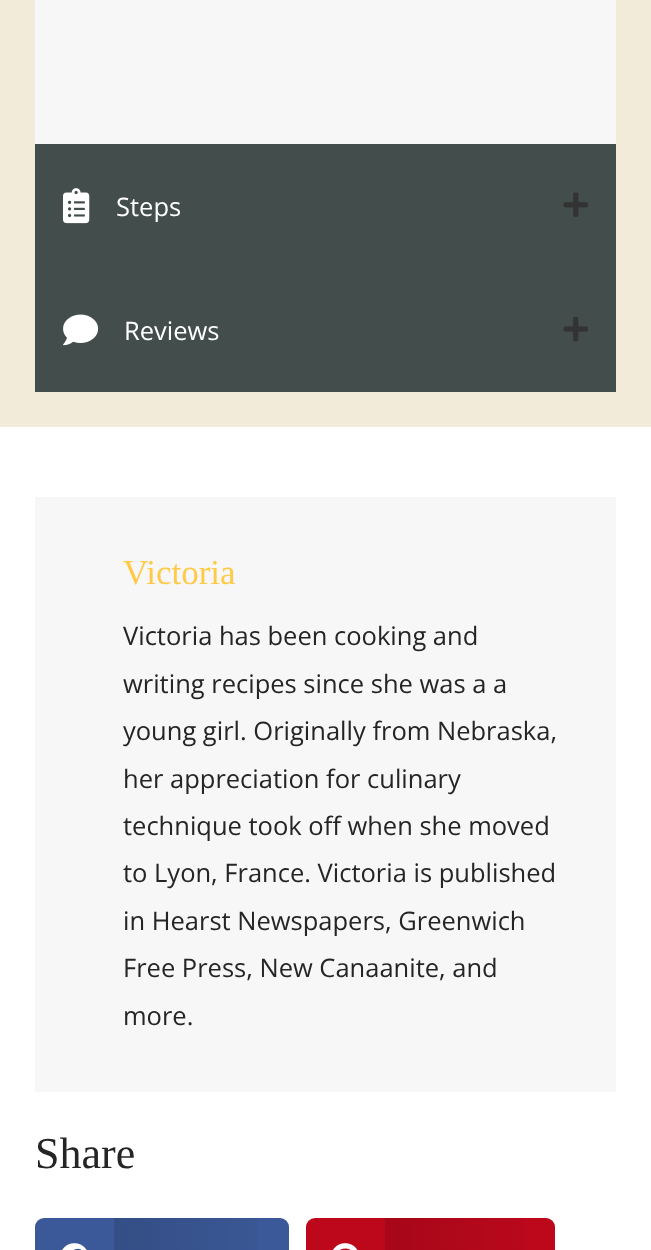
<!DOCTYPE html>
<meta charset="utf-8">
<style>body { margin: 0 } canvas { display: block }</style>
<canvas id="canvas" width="651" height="1250"></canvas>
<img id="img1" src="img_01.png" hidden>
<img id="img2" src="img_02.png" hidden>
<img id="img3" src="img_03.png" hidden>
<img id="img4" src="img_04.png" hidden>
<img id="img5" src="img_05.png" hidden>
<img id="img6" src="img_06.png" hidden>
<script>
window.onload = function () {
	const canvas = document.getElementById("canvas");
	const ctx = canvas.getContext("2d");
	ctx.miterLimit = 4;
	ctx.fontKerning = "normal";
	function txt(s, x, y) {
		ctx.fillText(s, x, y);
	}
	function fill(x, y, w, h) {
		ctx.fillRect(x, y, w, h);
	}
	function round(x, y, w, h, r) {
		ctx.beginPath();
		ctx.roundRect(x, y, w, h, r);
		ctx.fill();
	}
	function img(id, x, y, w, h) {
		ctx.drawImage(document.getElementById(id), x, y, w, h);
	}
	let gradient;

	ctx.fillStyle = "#FFFFFF";
	fill(0, 0, 651, 1250);
	ctx.fillStyle = "#F3EBD9";
	fill(0, 0, 651, 427);
	ctx.fillStyle = "#F7F7F7";
	fill(35, 0, 581, 144);
	ctx.fillStyle = "#434D4B";
	fill(35, 144, 581, 248);
	img("img1", 63, 188, 27, 36);
	img("img2", 563, 192, 25, 25);
	img("img3", 63, 314, 36, 32);
	img("img4", 563, 316, 25, 26);
	ctx.fillStyle = "#F7F7F7";
	fill(35, 497, 581, 595);
	ctx.fillStyle = "#3B5998";
	round(35, 1218, 254, 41, 9);
	img("img5", 62, 1243, 25, 7);
	gradient = ctx.createLinearGradient(114, 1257, 289, 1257);
	gradient.addColorStop(0, "rgba(0, 0, 0, 0.12)");
	gradient.addColorStop(1, "rgba(0, 0, 0, 0)");
	ctx.fillStyle = gradient;
	fill(114, 1218, 144, 32);
	ctx.fillStyle = "#BD081C";
	round(306, 1218, 249, 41, 9);
	img("img6", 333, 1243, 25, 7);
	gradient = ctx.createLinearGradient(385, 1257, 555, 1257);
	gradient.addColorStop(0, "rgba(0, 0, 0, 0.12)");
	gradient.addColorStop(1, "rgba(0, 0, 0, 0)");
	ctx.fillStyle = gradient;
	fill(385, 1218, 139, 32);
	ctx.font = "25.5px Open Sans";
	ctx.fillStyle = "#FFFFFF";
	txt("Steps", 116, 216);
	txt("Reviews", 124, 340);
	ctx.font = "35px Liberation Serif";
	ctx.fillStyle = "#FFCA47";
	txt("Victoria", 123, 584);
	ctx.font = "25.5px Open Sans";
	ctx.fillStyle = "#252525";
	txt("Victoria has been cooking and", 123, 645);
	txt("writing recipes since she was a a", 123, 693);
	txt("young girl. Originally from Nebraska,", 123, 740);
	txt("her appreciation for culinary", 123, 788);
	txt("technique took off when she moved", 123, 835);
	txt("to Lyon, France. Victoria is published", 123, 882);
	txt("in Hearst Newspapers, Greenwich", 123, 930);
	txt("Free Press, New Canaanite, and", 123, 977);
	txt("more.", 123, 1025);
	ctx.font = "44px Liberation Serif";
	txt("Share", 35, 1168);
};
</script>
